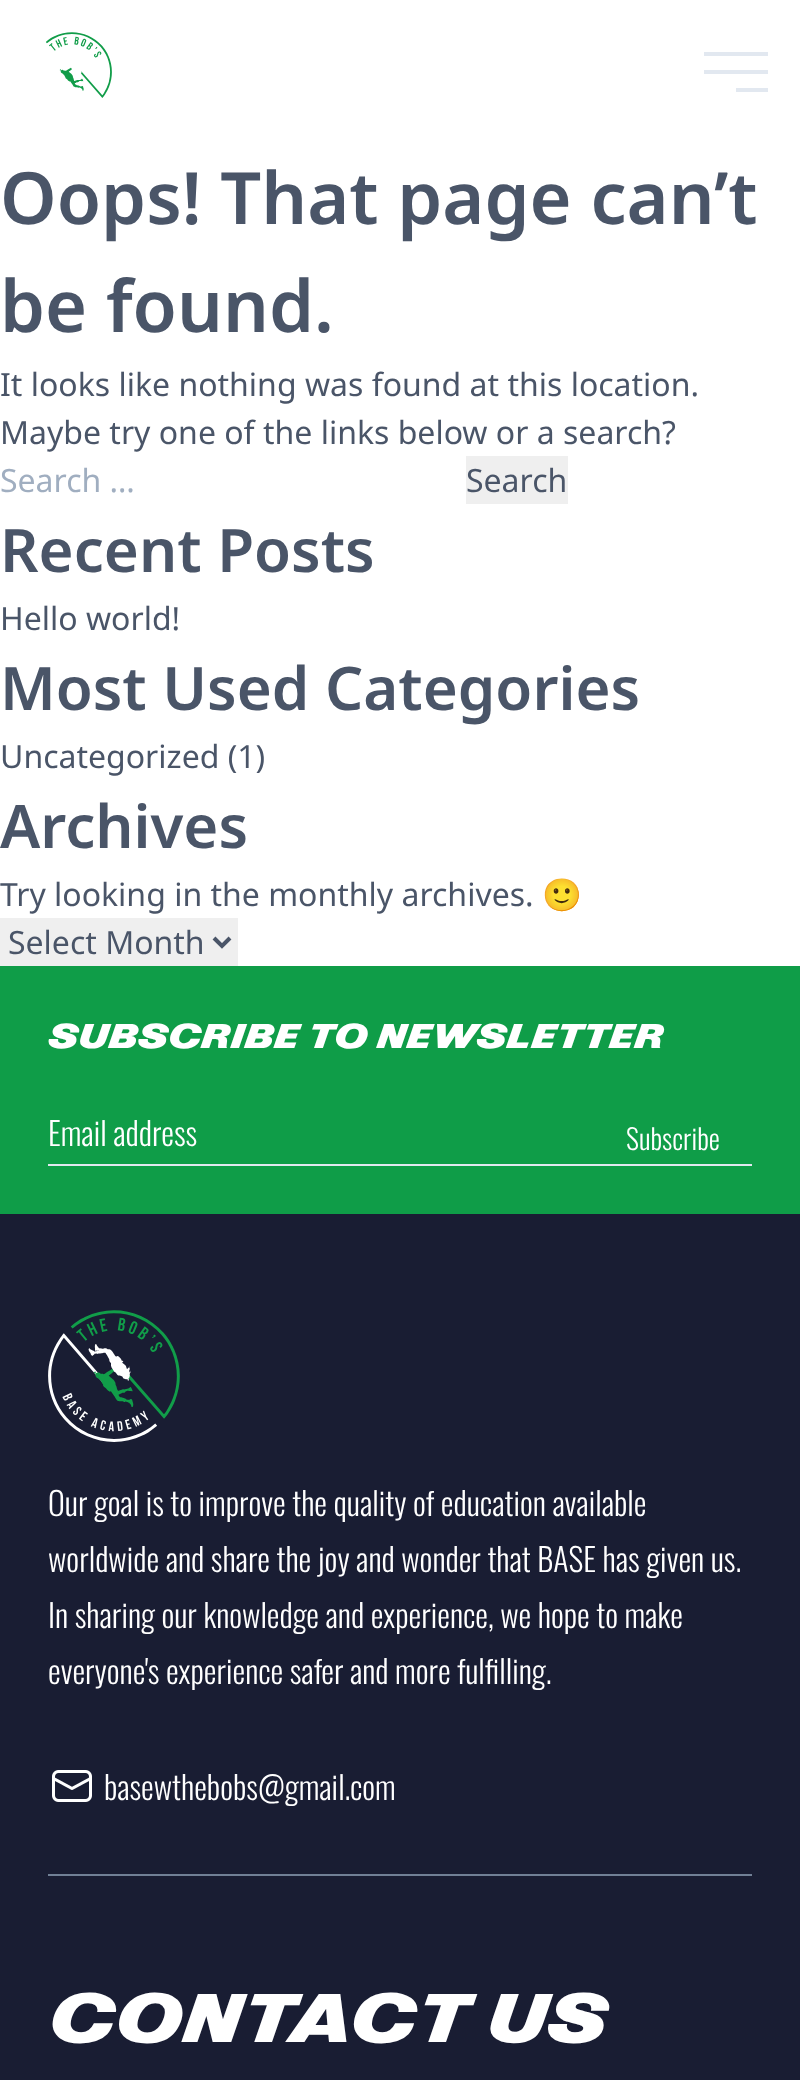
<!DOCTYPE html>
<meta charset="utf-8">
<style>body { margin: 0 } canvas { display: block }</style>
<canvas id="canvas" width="800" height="2080"></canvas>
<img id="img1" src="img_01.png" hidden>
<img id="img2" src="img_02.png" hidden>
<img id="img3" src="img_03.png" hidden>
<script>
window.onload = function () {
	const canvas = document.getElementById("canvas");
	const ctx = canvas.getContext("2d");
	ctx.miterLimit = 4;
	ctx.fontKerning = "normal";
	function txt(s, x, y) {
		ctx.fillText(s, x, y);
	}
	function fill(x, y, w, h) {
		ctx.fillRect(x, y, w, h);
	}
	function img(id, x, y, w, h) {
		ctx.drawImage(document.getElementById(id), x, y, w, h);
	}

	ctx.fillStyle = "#FFFFFF";
	fill(0, 0, 800, 2080);
	img("img1", 46, 32, 66, 66);
	ctx.fillStyle = "#E2E8F0";
	fill(704, 52, 64, 4);
	fill(704, 70, 64, 4);
	fill(736, 88, 32, 4);
	ctx.fillStyle = "#EFEFEF";
	fill(466, 456, 102, 48);
	fill(0, 918, 238, 48);
	ctx.beginPath();
	ctx.moveTo(214, 938);
	ctx.lineTo(222, 946);
	ctx.lineTo(230, 938);
	ctx.strokeStyle = "#4A5568";
	ctx.lineWidth = 4;
	ctx.stroke();
	ctx.fillStyle = "#0F9D48";
	fill(0, 966, 800, 248);
	ctx.fillStyle = "#E2E8F0";
	fill(48, 1164, 704, 2);
	ctx.fillStyle = "#191D33";
	fill(0, 1214, 800, 866);
	ctx.fillStyle = "#718096";
	fill(48, 1874, 704, 2);
	img("img2", 48, 1310, 132, 132);
	img("img3", 52, 1770, 40, 32);
	ctx.font = "600 72px Noto Sans";
	ctx.fillStyle = "#4A5568";
	txt("Oops! That page can’t", 0, 224);
	txt("be found.", 0, 332);
	ctx.font = "32px Noto Sans";
	txt("It looks like nothing was found at this location.", 0, 396);
	txt("Maybe try one of the links below or a search?", 0, 444);
	ctx.fillStyle = "#A0AEC0";
	txt("Search …", 0, 492);
	ctx.fillStyle = "#4A5568";
	txt("Search", 466, 492);
	ctx.font = "600 60px Noto Sans";
	txt("Recent Posts", 0, 572);
	ctx.font = "32px Noto Sans";
	txt("Hello world!", 0, 630);
	ctx.font = "600 60px Noto Sans";
	txt("Most Used Categories", 0, 710);
	ctx.font = "32px Noto Sans";
	txt("Uncategorized (1)", 0, 768);
	ctx.font = "600 60px Noto Sans";
	txt("Archives", 0, 848);
	ctx.font = "32px Noto Sans";
	txt("Try looking in the monthly archives.", 0, 906);
	ctx.font = "32px Noto Color Emoji";
	txt("🙂", 542, 906);
	ctx.font = "32px Noto Sans";
	txt("Select Month", 8, 954);
	ctx.font = "36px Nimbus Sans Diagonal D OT";
	ctx.fillStyle = "#FFFFFF";
	txt("SUBSCRIBE TO NEWSLETTER", 48, 1048);
	ctx.font = "300 32px Oswald";
	txt("Email address", 48, 1146);
	ctx.font = "300 28px Oswald";
	txt("Subscribe", 626, 1150);
	ctx.font = "300 32px Oswald";
	txt("Our goal is to improve the quality of education available", 48, 1516);
	txt("worldwide and share the joy and wonder that BASE has given us.", 48, 1572);
	txt("In sharing our knowledge and experience, we hope to make", 48, 1628);
	txt("everyone's experience safer and more fulfilling.", 48, 1684);
	txt("basewthebobs@gmail.com", 104, 1800);
	ctx.font = "72px Nimbus Sans Diagonal D OT";
	txt("CONTACT US", 48, 2042);
};
</script>
